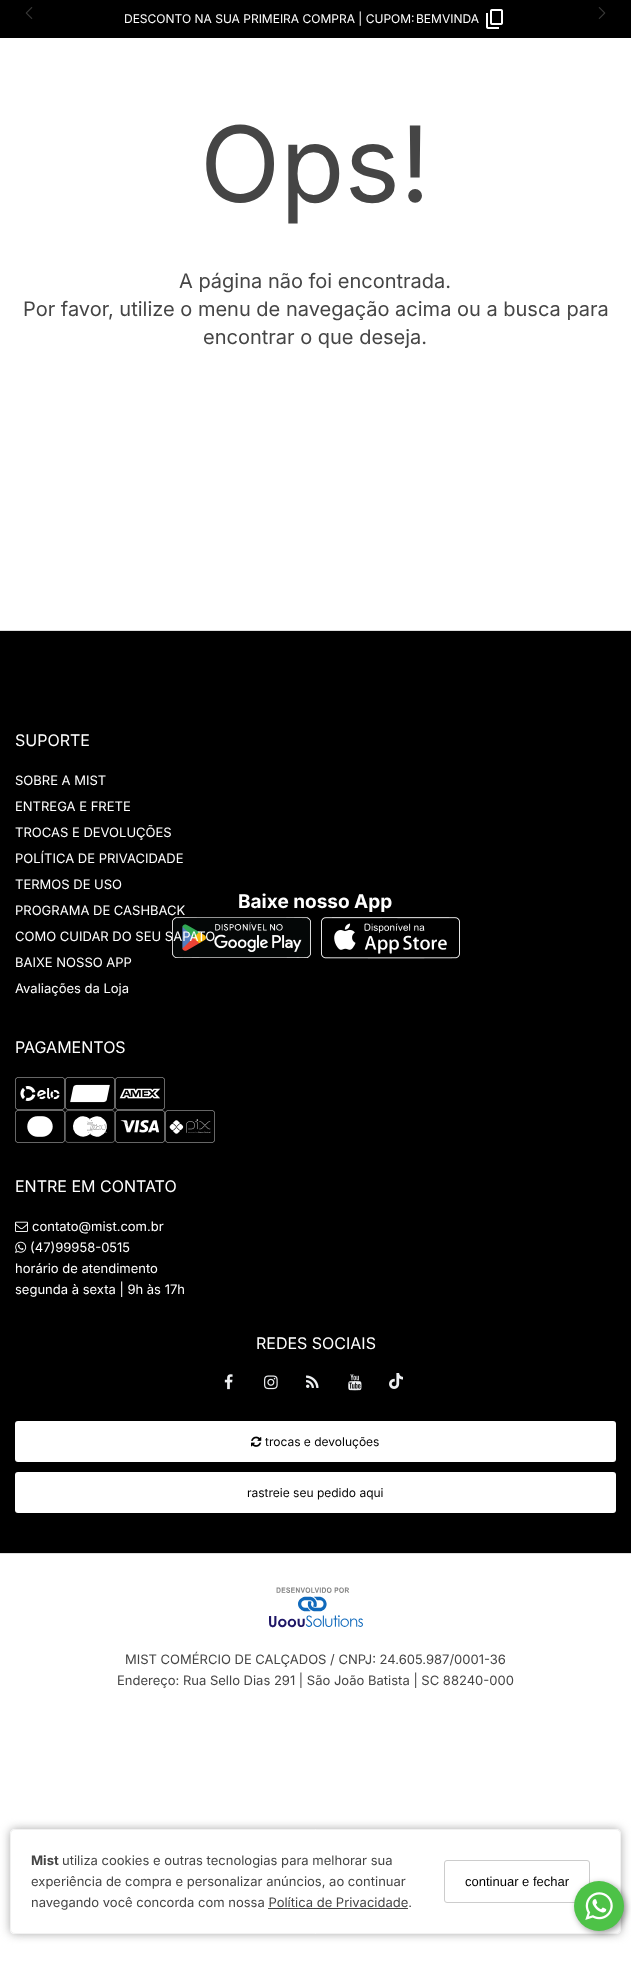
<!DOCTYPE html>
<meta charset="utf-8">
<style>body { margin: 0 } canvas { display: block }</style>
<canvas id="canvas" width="631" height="1973"></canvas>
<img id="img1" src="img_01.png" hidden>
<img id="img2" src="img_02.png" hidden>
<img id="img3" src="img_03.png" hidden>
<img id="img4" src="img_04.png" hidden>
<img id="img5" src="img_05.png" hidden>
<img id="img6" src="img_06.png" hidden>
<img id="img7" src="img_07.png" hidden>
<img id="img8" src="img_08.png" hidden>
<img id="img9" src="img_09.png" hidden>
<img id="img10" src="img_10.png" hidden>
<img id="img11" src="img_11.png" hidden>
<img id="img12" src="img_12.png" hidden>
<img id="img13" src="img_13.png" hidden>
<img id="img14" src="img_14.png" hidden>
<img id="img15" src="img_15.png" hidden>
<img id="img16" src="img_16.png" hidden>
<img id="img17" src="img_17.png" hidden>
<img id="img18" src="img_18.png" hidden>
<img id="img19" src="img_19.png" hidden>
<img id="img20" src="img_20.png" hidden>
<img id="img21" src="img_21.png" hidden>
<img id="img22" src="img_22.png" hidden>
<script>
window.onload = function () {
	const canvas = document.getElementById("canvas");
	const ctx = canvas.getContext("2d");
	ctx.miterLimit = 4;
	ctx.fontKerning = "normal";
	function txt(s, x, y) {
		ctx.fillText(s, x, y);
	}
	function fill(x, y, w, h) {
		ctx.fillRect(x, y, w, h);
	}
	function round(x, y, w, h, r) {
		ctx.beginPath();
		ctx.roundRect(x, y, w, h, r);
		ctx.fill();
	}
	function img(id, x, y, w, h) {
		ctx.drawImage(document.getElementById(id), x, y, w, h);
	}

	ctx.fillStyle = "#FFFFFF";
	fill(0, 0, 631, 1973);
	ctx.fillStyle = "#000000";
	fill(0, 0, 631, 38);
	img("img1", 25, 7, 8, 12);
	img("img2", 598, 7, 8, 12);
	img("img3", 486, 9, 17, 20);
	fill(0, 631, 631, 922);
	ctx.fillStyle = "#DDDDDD";
	fill(0, 630, 631, 1);
	img("img4", 172, 917, 139, 41);
	img("img5", 321, 917, 139, 42);
	img("img6", 15, 1077, 50, 33);
	img("img7", 65, 1077, 50, 33);
	img("img8", 115, 1077, 50, 33);
	img("img9", 15, 1110, 50, 33);
	img("img10", 65, 1110, 50, 33);
	img("img11", 115, 1110, 50, 33);
	img("img12", 165, 1110, 50, 33);
	img("img13", 15, 1221, 13, 11);
	img("img14", 15, 1241, 12, 12);
	img("img15", 224, 1374, 9, 16);
	img("img16", 264, 1375, 14, 15);
	img("img17", 306, 1375, 13, 13);
	img("img18", 348, 1374, 14, 17);
	img("img19", 389, 1373, 14, 16);
	ctx.fillStyle = "#FFFFFF";
	round(15, 1421, 601, 41, 3);
	img("img20", 251, 1436, 11, 11);
	round(15, 1472, 601, 41, 3);
	ctx.fillStyle = "#DDDDDD";
	fill(0, 1553, 631, 1);
	img("img21", 269, 1587, 94, 41);
	ctx.save();
	ctx.beginPath();
	ctx.moveTo(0, 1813);
	ctx.lineTo(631, 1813);
	ctx.lineTo(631, 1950);
	ctx.lineTo(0, 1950);
	ctx.closePath();
	ctx.moveTo(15, 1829);
	ctx.lineTo(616, 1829);
	ctx.bezierCurveTo(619, 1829, 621, 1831, 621, 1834);
	ctx.lineTo(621, 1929);
	ctx.bezierCurveTo(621, 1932, 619, 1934, 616, 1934);
	ctx.lineTo(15, 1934);
	ctx.bezierCurveTo(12, 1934, 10, 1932, 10, 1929);
	ctx.lineTo(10, 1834);
	ctx.bezierCurveTo(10, 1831, 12, 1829, 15, 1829);
	ctx.closePath();
	ctx.clip("evenodd");
	ctx.fillStyle = "#AAAAAA";
	ctx.filter = "blur(5px)";
	ctx.beginPath();
	ctx.roundRect(10, 1829, 611, 105, 5);
	ctx.fill();
	ctx.filter = "none";
	ctx.restore();
	ctx.fillStyle = "rgba(255, 255, 255, 0.98)";
	ctx.beginPath();
	ctx.roundRect(10.5, 1829.5, 610, 104, 4.5);
	ctx.fill();
	ctx.strokeStyle = "#F2F2F2";
	ctx.stroke();
	ctx.fillStyle = "#454545";
	fill(268, 1908, 140, 1);
	ctx.beginPath();
	ctx.roundRect(444.5, 1860.5, 145, 42, 2.5);
	ctx.strokeStyle = "#CCCCCC";
	ctx.stroke();
	ctx.fillStyle = "rgba(0, 0, 0, 0.4)";
	ctx.filter = "blur(3px)";
	ctx.beginPath();
	ctx.roundRect(576, 1883, 50, 50, 25);
	ctx.fill();
	ctx.filter = "none";
	ctx.fillStyle = "#4DC247";
	ctx.beginPath();
	ctx.arc(599, 1906, 25, 0, Math.PI * 2);
	ctx.fill();
	img("img22", 585, 1892, 28, 28);
	ctx.font = "12px Inter";
	ctx.fillStyle = "#FFFFFF";
	txt("DESCONTO NA SUA PRIMEIRA COMPRA | CUPOM:", 124, 23);
	txt("BEMVINDA", 416, 23);
	ctx.font = "105px Inter";
	ctx.fillStyle = "#454545";
	txt("Ops!", 200, 202);
	ctx.font = "20px Inter";
	txt("A página não foi encontrada.", 179, 288);
	txt("Por favor, utilize o menu de navegação acima ou a busca para", 23, 316);
	txt("encontrar o que deseja.", 203, 344);
	ctx.font = "16px Inter";
	ctx.fillStyle = "#FFFFFF";
	txt("SUPORTE", 15, 746);
	ctx.font = "13px Inter";
	txt("SOBRE A MIST", 15, 785);
	txt("ENTREGA E FRETE", 15, 811);
	txt("TROCAS E DEVOLUÇÕES", 15, 837);
	txt("POLÍTICA DE PRIVACIDADE", 15, 863);
	txt("TERMOS DE USO", 15, 889);
	txt("PROGRAMA DE CASHBACK", 15, 915);
	txt("COMO CUIDAR DO SEU SAPATO", 15, 941);
	txt("BAIXE NOSSO APP", 15, 967);
	txt("Avaliações da Loja", 15, 993);
	ctx.font = "bold 19px Inter";
	txt("Baixe nosso App", 238, 908);
	ctx.font = "16px Inter";
	txt("PAGAMENTOS", 15, 1053);
	txt("ENTRE EM CONTATO", 15, 1192);
	ctx.font = "13px Inter";
	txt("contato@mist.com.br", 32, 1231);
	txt("(47)99958-0515", 30, 1252);
	txt("horário de atendimento", 15, 1273);
	txt("segunda à sexta | 9h às 17h", 15, 1294);
	ctx.font = "16px Inter";
	txt("REDES SOCIAIS", 256, 1349);
	ctx.font = "12px Inter";
	ctx.fillStyle = "#000000";
	txt("trocas e devoluções", 265, 1446);
	txt("rastreie seu pedido aqui", 247, 1497);
	ctx.font = "13px Inter";
	ctx.fillStyle = "#454545";
	txt("MIST COMÉRCIO DE CALÇADOS / CNPJ: 24.605.987/0001-36", 125, 1664);
	txt("Endereço: Rua Sello Dias 291 | São João Batista | SC 88240-000", 117, 1685);
	ctx.font = "bold 13px Inter";
	txt("Mist", 31, 1865);
	ctx.font = "13px Inter";
	txt("utiliza cookies e outras tecnologias para melhorar sua", 62, 1865);
	txt("experiência de compra e personalizar anúncios, ao continuar", 31, 1886);
	txt("navegando você concorda com nossa Política de Privacidade.", 31, 1907);
	ctx.font = "13px Liberation Sans";
	ctx.fillStyle = "#000000";
	txt("continuar e fechar", 465, 1886);
};
</script>
